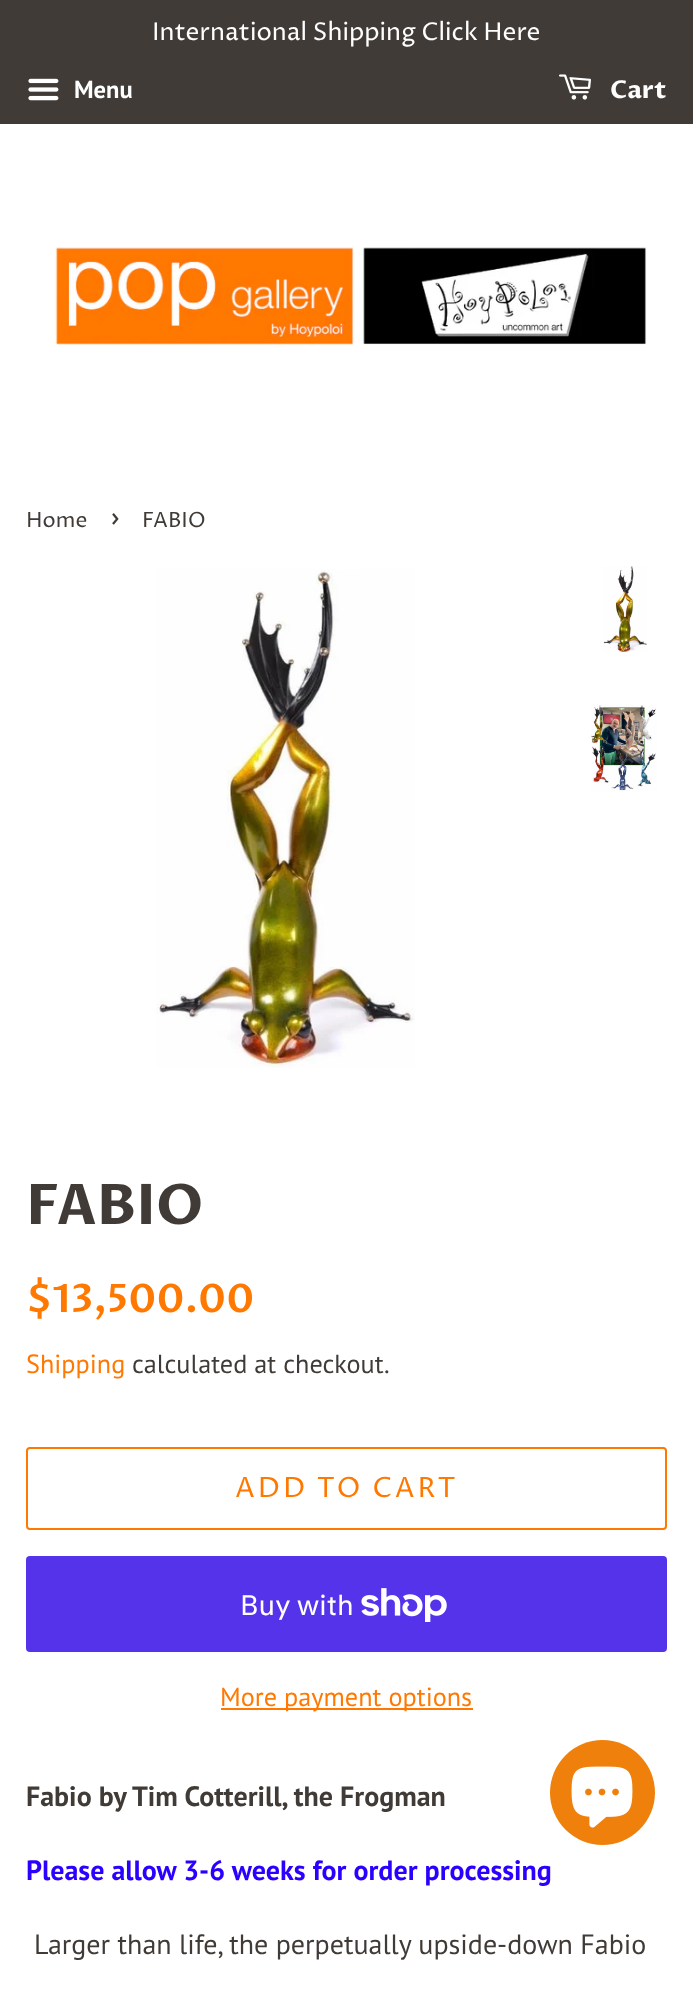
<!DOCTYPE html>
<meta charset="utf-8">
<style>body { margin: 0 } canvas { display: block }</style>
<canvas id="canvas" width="693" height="1992"></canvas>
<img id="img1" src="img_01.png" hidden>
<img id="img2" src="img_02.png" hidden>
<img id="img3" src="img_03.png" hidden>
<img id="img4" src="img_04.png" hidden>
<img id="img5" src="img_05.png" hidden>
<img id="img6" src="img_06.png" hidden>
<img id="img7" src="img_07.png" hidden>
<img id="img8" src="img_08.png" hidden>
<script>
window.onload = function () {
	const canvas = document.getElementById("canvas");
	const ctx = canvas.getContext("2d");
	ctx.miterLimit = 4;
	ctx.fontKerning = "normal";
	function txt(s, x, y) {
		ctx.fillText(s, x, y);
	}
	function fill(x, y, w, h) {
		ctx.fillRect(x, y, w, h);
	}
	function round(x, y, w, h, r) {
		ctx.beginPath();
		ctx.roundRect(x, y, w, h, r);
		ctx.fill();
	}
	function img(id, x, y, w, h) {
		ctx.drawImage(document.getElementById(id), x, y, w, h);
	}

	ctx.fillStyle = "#FFFFFF";
	fill(0, 0, 693, 1992);
	ctx.fillStyle = "#403B37";
	fill(0, 0, 693, 124);
	img("img1", 28, 78, 31, 23);
	img("img2", 559, 74, 32, 26);
	img("img3", 55, 247, 592, 98);
	img("img4", 156, 569, 259, 499);
	img("img5", 603, 566, 44, 87);
	img("img6", 591, 705, 66, 86);
	ctx.beginPath();
	ctx.roundRect(27, 1448, 639, 81, 3);
	ctx.strokeStyle = "#FF7800";
	ctx.lineWidth = 2;
	ctx.stroke();
	ctx.fillStyle = "#5433EB";
	round(26, 1556, 641, 96, 4);
	img("img7", 361, 1588, 86, 34);
	ctx.fillStyle = "#FF7800";
	fill(221, 1708, 252, 2);
	ctx.fillStyle = "#EF800C";
	ctx.beginPath();
	ctx.arc(602.5, 1792.5, 52.5, 0, Math.PI * 2);
	ctx.fill();
	img("img8", 571, 1766, 62, 62);
	ctx.font = "24.5px Proza Libre";
	ctx.fillStyle = "#FFFFFF";
	txt("International Shipping Click Here", 152, 40);
	ctx.font = "bold 24.5px PT Sans";
	txt("Menu", 74, 98);
	ctx.font = "bold 24.5px Proza Libre";
	txt("Cart", 610, 98);
	ctx.font = "21px Proza Libre";
	ctx.fillStyle = "#403B37";
	txt("Home", 26, 527);
	ctx.font = "29px Proza Libre";
	txt("›", 110, 527);
	ctx.font = "21px Proza Libre";
	txt("FABIO", 142, 527);
	ctx.font = "bold 56px Proza Libre";
	txt("FABIO", 26, 1224);
	ctx.font = "600 39.25px Proza Libre";
	ctx.fillStyle = "#FF7800";
	txt("$13,500.00", 26, 1312);
	ctx.font = "26.25px PT Sans";
	txt("Shipping", 26, 1373);
	ctx.fillStyle = "#403B37";
	txt("calculated at checkout.", 132, 1373);
	ctx.letterSpacing = "2.75px";
	ctx.font = "28px Proza Libre";
	ctx.fillStyle = "#FF7800";
	txt("ADD TO CART", 235, 1497);
	ctx.letterSpacing = "0px";
	ctx.font = "28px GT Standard";
	ctx.fillStyle = "#FFFFFF";
	txt("Buy with", 240, 1615);
	ctx.font = "26.25px PT Sans";
	ctx.fillStyle = "#FF7800";
	txt("More payment options", 220, 1706);
	ctx.font = "bold 28px PT Sans";
	ctx.fillStyle = "#403B37";
	txt("Fabio by Tim Cotterill, the Frogman", 26, 1806);
	ctx.fillStyle = "#2B00FF";
	txt("Please allow 3-6 weeks for order processing", 26, 1880);
	ctx.font = "28px PT Sans";
	ctx.fillStyle = "#403B37";
	txt("Larger than life, the perpetually upside-down Fabio", 34, 1954);
};
</script>
